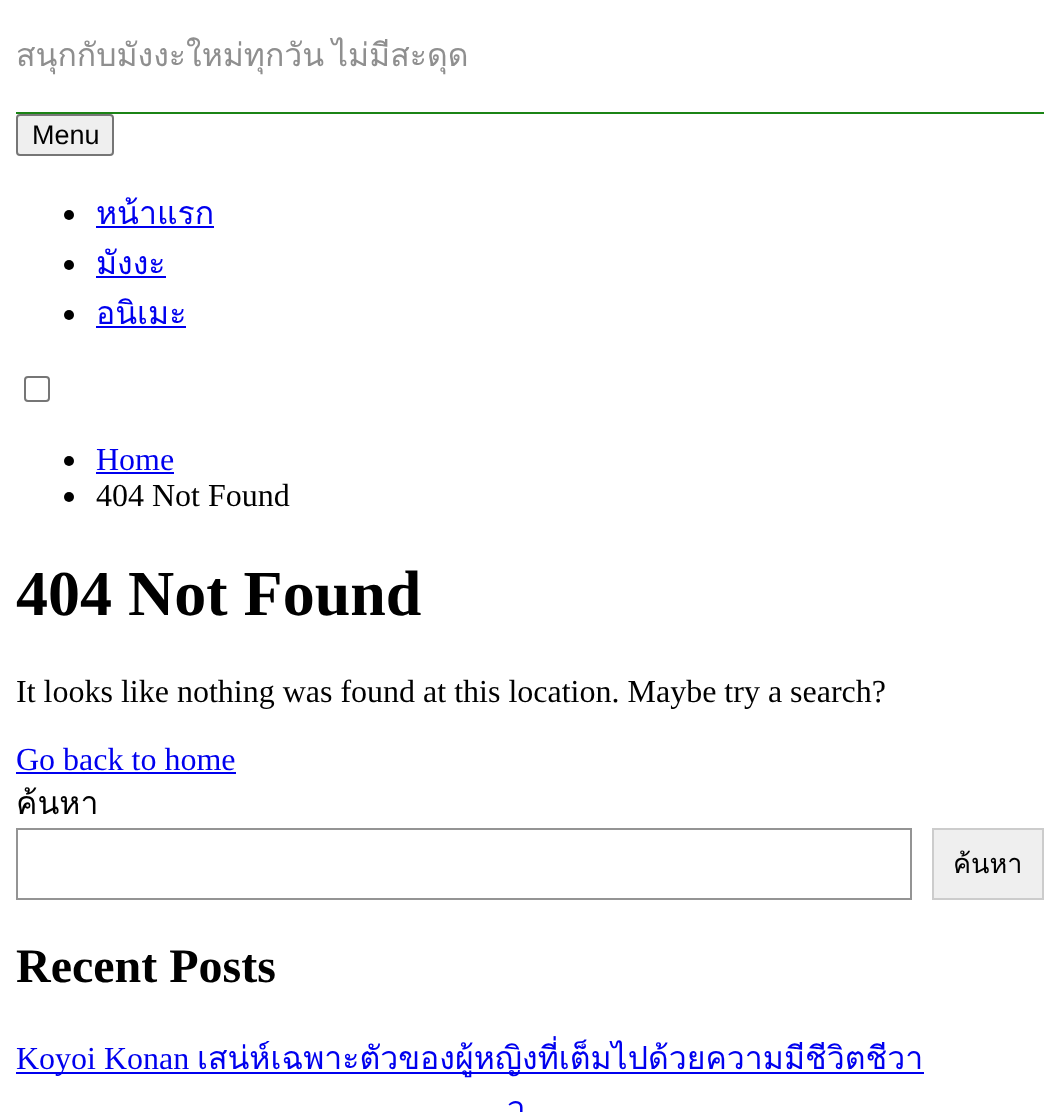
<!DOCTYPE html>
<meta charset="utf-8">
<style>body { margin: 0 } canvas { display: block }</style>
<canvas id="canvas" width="1060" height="1112"></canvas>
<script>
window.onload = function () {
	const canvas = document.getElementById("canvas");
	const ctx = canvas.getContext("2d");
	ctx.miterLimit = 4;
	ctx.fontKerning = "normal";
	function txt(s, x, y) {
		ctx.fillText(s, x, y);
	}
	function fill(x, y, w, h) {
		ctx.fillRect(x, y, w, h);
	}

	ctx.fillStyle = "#FFFFFF";
	fill(0, 0, 1060, 1112);
	ctx.fillStyle = "#1B8415";
	fill(16, 112, 1028, 2);
	ctx.fillStyle = "#EFEFEF";
	ctx.beginPath();
	ctx.roundRect(17, 115, 96, 40, 3);
	ctx.fill();
	ctx.strokeStyle = "#767676";
	ctx.lineWidth = 2;
	ctx.stroke();
	ctx.fillStyle = "#000000";
	ctx.beginPath();
	ctx.arc(69, 215, 5, 0, Math.PI * 2);
	ctx.fill();
	ctx.fillStyle = "#0000EE";
	fill(96, 226, 118, 2);
	ctx.fillStyle = "#000000";
	ctx.beginPath();
	ctx.arc(69, 265, 5, 0, Math.PI * 2);
	ctx.fill();
	ctx.fillStyle = "#0000EE";
	fill(96, 276, 70, 2);
	ctx.fillStyle = "#000000";
	ctx.beginPath();
	ctx.arc(69, 315, 5, 0, Math.PI * 2);
	ctx.fill();
	ctx.fillStyle = "#0000EE";
	fill(96, 326, 90, 2);
	ctx.beginPath();
	ctx.roundRect(25, 377, 24, 24, 3);
	ctx.stroke();
	ctx.fillStyle = "#000000";
	ctx.beginPath();
	ctx.arc(69, 461, 5, 0, Math.PI * 2);
	ctx.fill();
	ctx.fillStyle = "#0000EE";
	fill(96, 472, 78, 2);
	ctx.fillStyle = "#000000";
	ctx.beginPath();
	ctx.arc(69, 497, 5, 0, Math.PI * 2);
	ctx.fill();
	ctx.fillStyle = "#0000EE";
	fill(16, 772, 220, 2);
	ctx.strokeStyle = "#949494";
	ctx.strokeRect(17, 829, 894, 70);
	ctx.fillStyle = "#EFEFEF";
	ctx.beginPath();
	ctx.rect(933, 829, 110, 70);
	ctx.fill();
	ctx.strokeStyle = "#CCCCCC";
	ctx.stroke();
	ctx.fillStyle = "#0000EE";
	fill(16, 1072, 908, 2);
	ctx.wordSpacing = "-3px";
	ctx.font = "32px Loma";
	ctx.fillStyle = "#8F8F8F";
	txt("สนุกกับมังงะใหม่ทุกวัน ไม่มีสะดุด", 16, 66);
	ctx.wordSpacing = "0px";
	ctx.font = "27px Liberation Sans";
	ctx.fillStyle = "#000000";
	txt("Menu", 32, 144);
	ctx.font = "32px Loma";
	ctx.fillStyle = "#0000EE";
	txt("หน้าแรก", 96, 224);
	txt("มังงะ", 96, 274);
	txt("อนิเมะ", 96, 324);
	ctx.font = "32px Liberation Serif";
	txt("Home", 96, 470);
	ctx.fillStyle = "#000000";
	txt("404 Not Found", 96, 506);
	ctx.font = "bold 64px Liberation Serif";
	txt("404 Not Found", 16, 615);
	ctx.font = "32px Liberation Serif";
	txt("It looks like nothing was found at this location. Maybe try a search?", 16, 702);
	ctx.fillStyle = "#0000EE";
	txt("Go back to home", 16, 770);
	ctx.font = "32px Loma";
	ctx.fillStyle = "#000000";
	txt("ค้นหา", 16, 814);
	ctx.font = "27px Loma";
	txt("ค้นหา", 953, 873);
	ctx.font = "bold 48px Liberation Serif";
	txt("Recent Posts", 16, 982);
	ctx.font = "32px Liberation Serif";
	ctx.fillStyle = "#0000EE";
	txt("Koyoi Konan", 16, 1069);
	ctx.font = "32px Loma";
	txt("เสน่ห์เฉพาะตัวของผู้หญิงที่เต็มไปด้วยความมีชีวิตชีวา", 197, 1069);
	txt("ว", 507, 1119);
};
</script>
